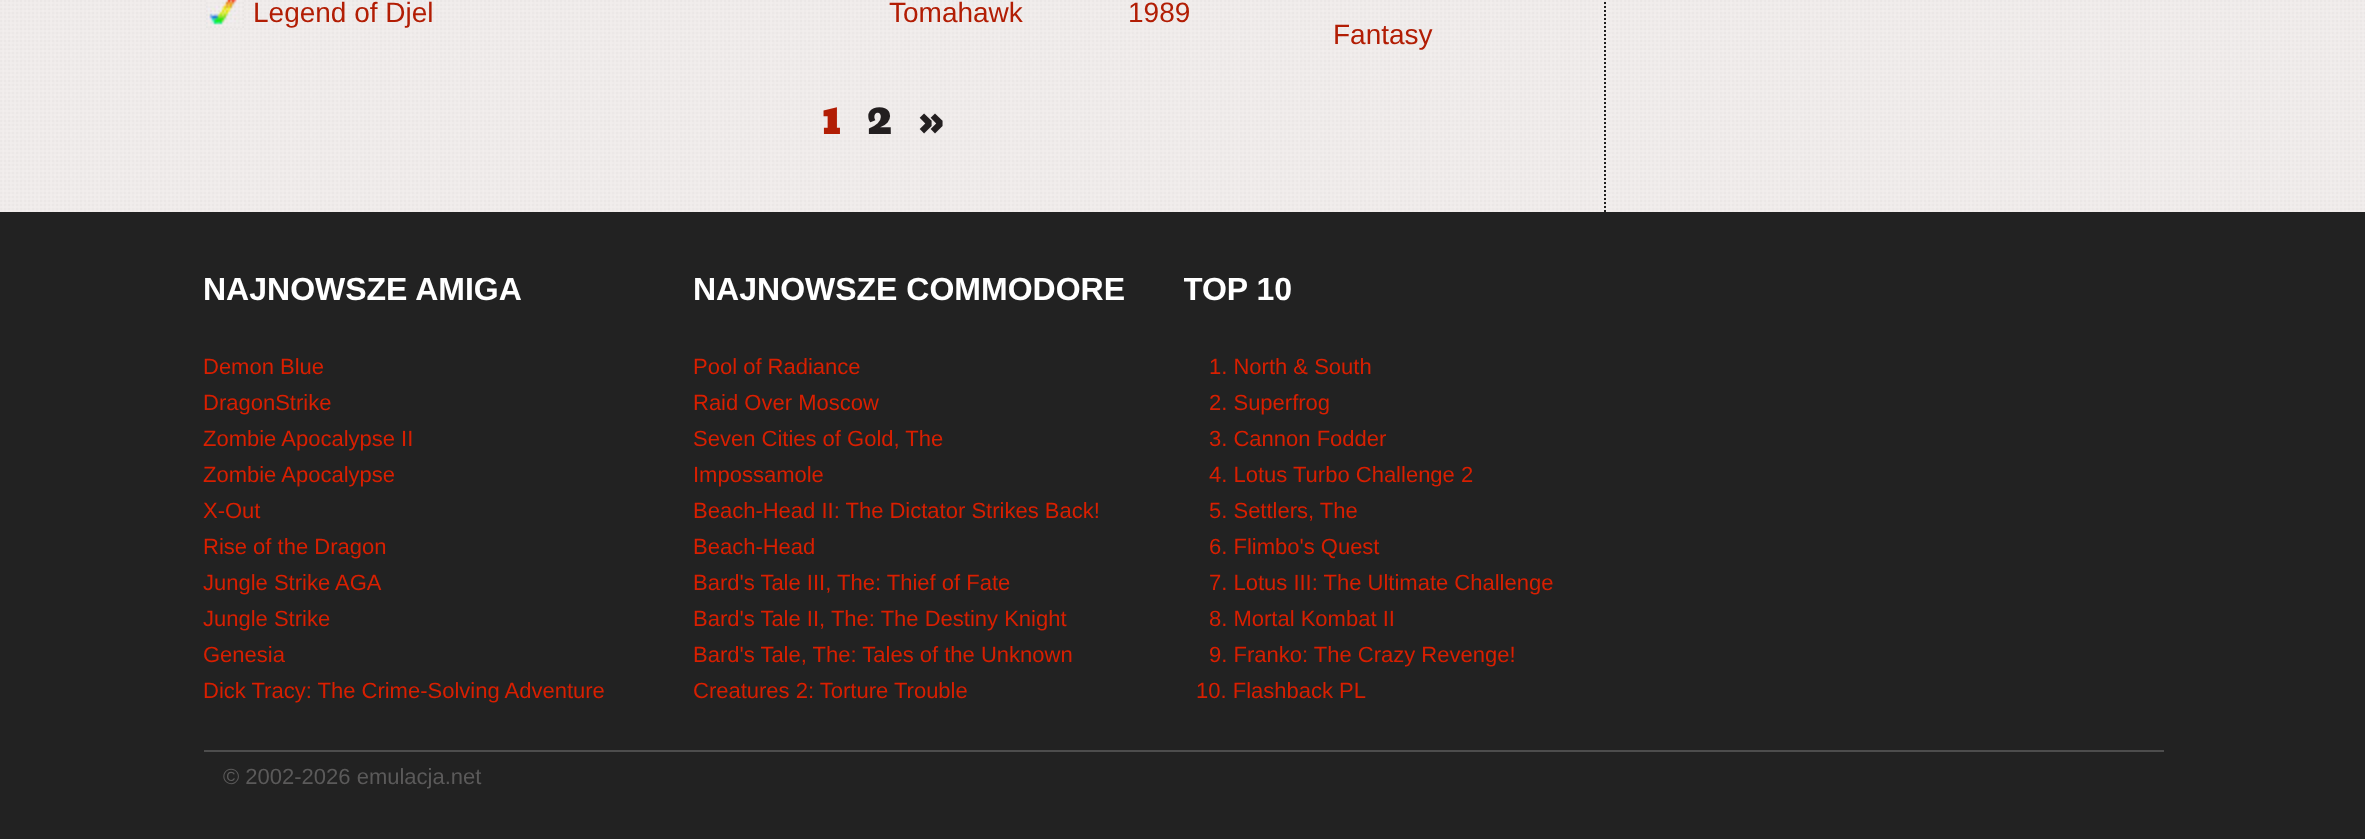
<!DOCTYPE html>
<meta charset="utf-8">
<style>body { margin: 0 } canvas { display: block }</style>
<canvas id="canvas" width="2365" height="839"></canvas>
<img id="img1" src="img_01.png" hidden>
<img id="img2" src="img_02.png" hidden>
<script>
window.onload = function () {
	const canvas = document.getElementById("canvas");
	const ctx = canvas.getContext("2d");
	ctx.miterLimit = 4;
	ctx.fontKerning = "normal";
	function txt(s, x, y) {
		ctx.fillText(s, x, y);
	}
	function fill(x, y, w, h) {
		ctx.fillRect(x, y, w, h);
	}
	function img(id, x, y, w, h) {
		ctx.drawImage(document.getElementById(id), x, y, w, h);
	}

	ctx.fillStyle = "#222222";
	fill(0, 0, 2365, 839);
	img("img1", 0, 0, 2365, 212);
	ctx.beginPath();
	ctx.moveTo(1605, -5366);
	ctx.lineTo(1605, 212);
	ctx.strokeStyle = "#1F1E1E";
	ctx.lineWidth = 2;
	ctx.setLineDash([2, 2]);
	ctx.stroke();
	img("img2", 206, 0, 38, 28);
	ctx.fillStyle = "#4D4D4D";
	fill(204, 750, 1960, 2);
	ctx.font = "28px Liberation Sans";
	ctx.fillStyle = "#B21D04";
	txt("Legend of Djel", 253, 22);
	txt("Tomahawk", 889, 22);
	txt("1989", 1128, 22);
	txt("Fantasy", 1333, 44);
	ctx.font = "40px Bevan";
	txt("1", 822, 134);
	ctx.fillStyle = "#231F20";
	txt("2", 867, 134);
	txt("»", 919, 134);
	ctx.font = "bold 32px Liberation Sans";
	ctx.fillStyle = "#FFFFFF";
	txt("NAJNOWSZE AMIGA", 203, 300);
	ctx.font = "22px Liberation Sans";
	ctx.fillStyle = "#D81F00";
	txt("Demon Blue", 203, 374);
	txt("DragonStrike", 203, 410);
	txt("Zombie Apocalypse II", 203, 446);
	txt("Zombie Apocalypse", 203, 482);
	txt("X-Out", 203, 518);
	txt("Rise of the Dragon", 203, 554);
	txt("Jungle Strike AGA", 203, 590);
	txt("Jungle Strike", 203, 626);
	txt("Genesia", 203, 662);
	txt("Dick Tracy: The Crime-Solving Adventure", 203, 698);
	ctx.font = "bold 32px Liberation Sans";
	ctx.fillStyle = "#FFFFFF";
	txt("NAJNOWSZE COMMODORE", 693, 300);
	ctx.font = "22px Liberation Sans";
	ctx.fillStyle = "#D81F00";
	txt("Pool of Radiance", 693, 374);
	txt("Raid Over Moscow", 693, 410);
	txt("Seven Cities of Gold, The", 693, 446);
	txt("Impossamole", 693, 482);
	txt("Beach-Head II: The Dictator Strikes Back!", 693, 518);
	txt("Beach-Head", 693, 554);
	txt("Bard's Tale III, The: Thief of Fate", 693, 590);
	txt("Bard's Tale II, The: The Destiny Knight", 693, 626);
	txt("Bard's Tale, The: Tales of the Unknown", 693, 662);
	txt("Creatures 2: Torture Trouble", 693, 698);
	ctx.save();
	ctx.beginPath();
	ctx.rect(1184, 272, 450, 458);
	ctx.clip();
	ctx.font = "bold 32px Liberation Sans";
	ctx.fillStyle = "#FFFFFF";
	txt("TOP 10", 1183, 300);
	ctx.restore();
	txt("1. North & South", 1209, 374);
	txt("2. Superfrog", 1209, 410);
	txt("3. Cannon Fodder", 1209, 446);
	txt("4. Lotus Turbo Challenge 2", 1209, 482);
	txt("5. Settlers, The", 1209, 518);
	txt("6. Flimbo's Quest", 1209, 554);
	txt("7. Lotus III: The Ultimate Challenge", 1209, 590);
	txt("8. Mortal Kombat II", 1209, 626);
	txt("9. Franko: The Crazy Revenge!", 1209, 662);
	txt("10. Flashback PL", 1196, 698);
	ctx.fillStyle = "#5B5A5A";
	txt("© 2002-2026 emulacja.net", 223, 784);
};
</script>
